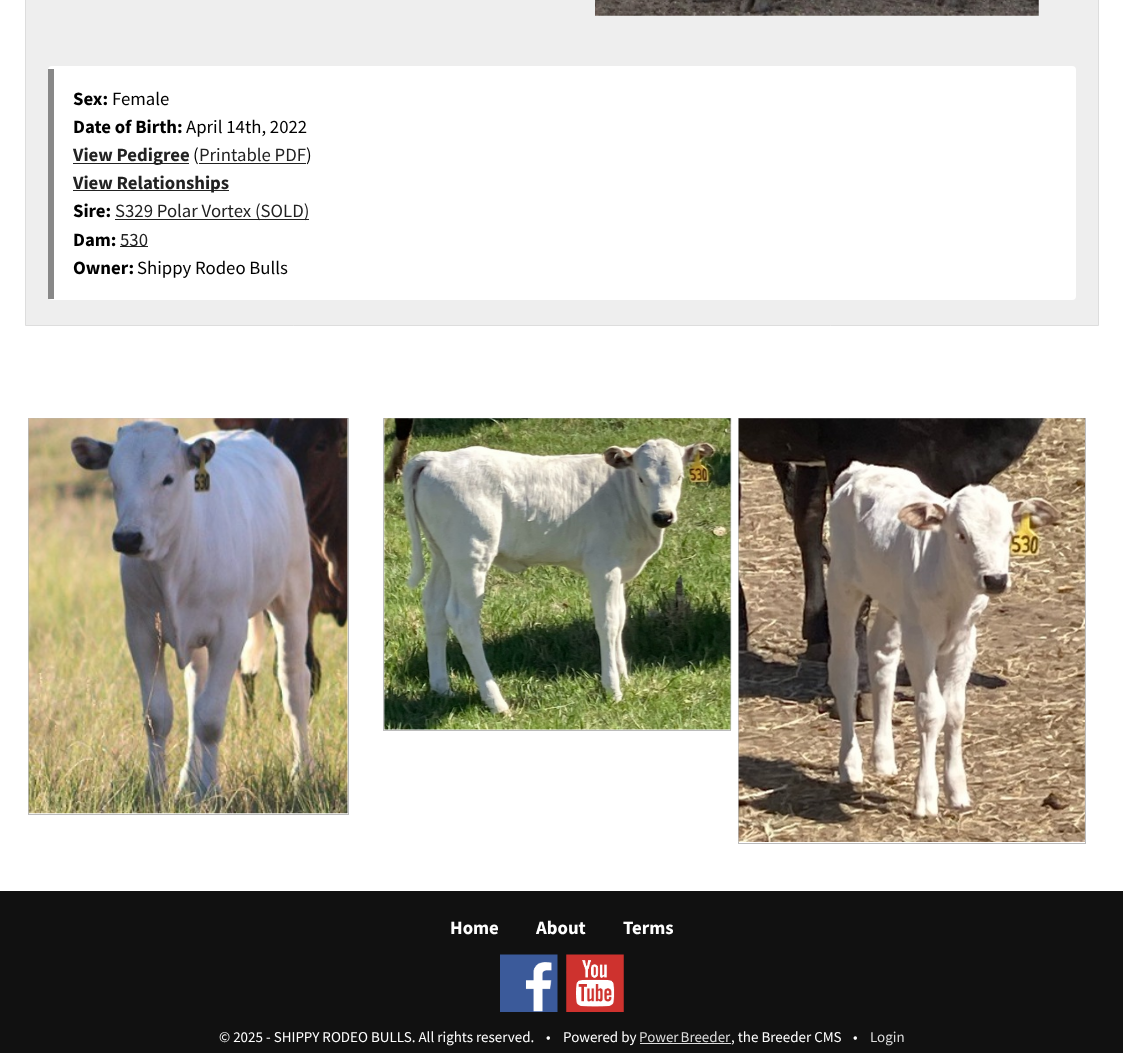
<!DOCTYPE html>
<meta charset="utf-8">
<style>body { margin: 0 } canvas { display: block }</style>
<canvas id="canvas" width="1123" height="1053"></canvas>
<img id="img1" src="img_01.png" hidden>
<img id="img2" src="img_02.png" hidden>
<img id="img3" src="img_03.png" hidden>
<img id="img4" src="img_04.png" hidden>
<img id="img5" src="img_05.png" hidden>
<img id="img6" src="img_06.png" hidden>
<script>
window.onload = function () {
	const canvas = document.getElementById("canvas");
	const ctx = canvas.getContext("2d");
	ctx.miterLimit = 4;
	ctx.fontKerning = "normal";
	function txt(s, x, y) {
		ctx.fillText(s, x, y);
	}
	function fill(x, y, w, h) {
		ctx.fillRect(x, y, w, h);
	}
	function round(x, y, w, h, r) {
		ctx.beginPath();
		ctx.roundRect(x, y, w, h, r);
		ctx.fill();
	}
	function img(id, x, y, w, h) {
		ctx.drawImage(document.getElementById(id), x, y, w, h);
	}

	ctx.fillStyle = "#FFFFFF";
	fill(0, 0, 1123, 1053);
	ctx.fillStyle = "#EEEEEE";
	ctx.beginPath();
	ctx.rect(25.5, -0.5, 1073, 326);
	ctx.fill();
	ctx.strokeStyle = "#DDDDDD";
	ctx.stroke();
	img("img1", 595, 0, 444, 16);
	ctx.fillStyle = "#FFFFFF";
	round(48, 66, 1028, 234, 4);
	ctx.fillStyle = "#888888";
	fill(48, 69, 6, 230);
	ctx.fillStyle = "#222222";
	fill(73, 163, 116, 1);
	fill(199, 163, 107, 1);
	fill(73, 190, 156, 1);
	fill(115, 219, 194, 1);
	fill(120, 246, 28, 1);
	ctx.strokeStyle = "#BCBCBC";
	ctx.strokeRect(28.5, 418.5, 320, 396);
	img("img2", 28, 418, 320, 396);
	ctx.strokeRect(383.5, 418.5, 347, 312);
	img("img3", 384, 418, 348, 312);
	ctx.strokeRect(738.5, 418.5, 347, 425);
	img("img4", 738, 418, 347, 424);
	ctx.fillStyle = "#111111";
	fill(0, 891, 1123, 162);
	img("img5", 500, 954, 58, 58);
	img("img6", 566, 954, 58, 58);
	ctx.fillStyle = "#DDDDDD";
	fill(640, 1043, 91, 1);
	ctx.font = "bold 18.75px Source Sans Pro";
	ctx.fillStyle = "#000000";
	txt("Sex:", 73, 105);
	ctx.font = "18.75px Source Sans Pro";
	txt("Female", 112, 105);
	ctx.font = "bold 18.75px Source Sans Pro";
	txt("Date of Birth:", 73, 133);
	ctx.font = "18.75px Source Sans Pro";
	txt("April 14th, 2022", 186, 133);
	ctx.font = "bold 18.75px Source Sans Pro";
	ctx.fillStyle = "#222222";
	txt("View Pedigree", 73, 161);
	ctx.font = "18.75px Source Sans Pro";
	ctx.fillStyle = "#000000";
	txt("(", 193, 161);
	ctx.fillStyle = "#222222";
	txt("Printable PDF", 199, 161);
	ctx.fillStyle = "#000000";
	txt(")", 306, 161);
	ctx.font = "bold 18.75px Source Sans Pro";
	ctx.fillStyle = "#222222";
	txt("View Relationships", 73, 189);
	ctx.fillStyle = "#000000";
	txt("Sire:", 73, 217);
	ctx.font = "18.75px Source Sans Pro";
	ctx.fillStyle = "#222222";
	txt("S329 Polar Vortex (SOLD)", 115, 217);
	ctx.font = "bold 18.75px Source Sans Pro";
	ctx.fillStyle = "#000000";
	txt("Dam:", 73, 246);
	ctx.font = "18.75px Source Sans Pro";
	ctx.fillStyle = "#222222";
	txt("530", 120, 246);
	ctx.font = "bold 18.75px Source Sans Pro";
	ctx.fillStyle = "#000000";
	txt("Owner:", 73, 274);
	ctx.font = "18.75px Source Sans Pro";
	txt("Shippy Rodeo Bulls", 137, 274);
	ctx.font = "bold 18.75px Source Sans Pro";
	ctx.fillStyle = "#FFFFFF";
	txt("Home", 450, 934);
	txt("About", 536, 934);
	txt("Terms", 623, 934);
	ctx.font = "15px Source Sans Pro";
	txt("© 2025 - SHIPPY RODEO BULLS. All rights reserved.", 219, 1042);
	txt("•", 546, 1042);
	txt("Powered by", 563, 1042);
	ctx.wordSpacing = "-1px";
	ctx.fillStyle = "#DDDDDD";
	txt("Power Breeder", 639, 1042);
	ctx.wordSpacing = "0px";
	ctx.fillStyle = "#FFFFFF";
	txt(", the Breeder CMS", 731, 1042);
	txt("•", 853, 1042);
	ctx.fillStyle = "#DDDDDD";
	txt("Login", 870, 1042);
};
</script>
